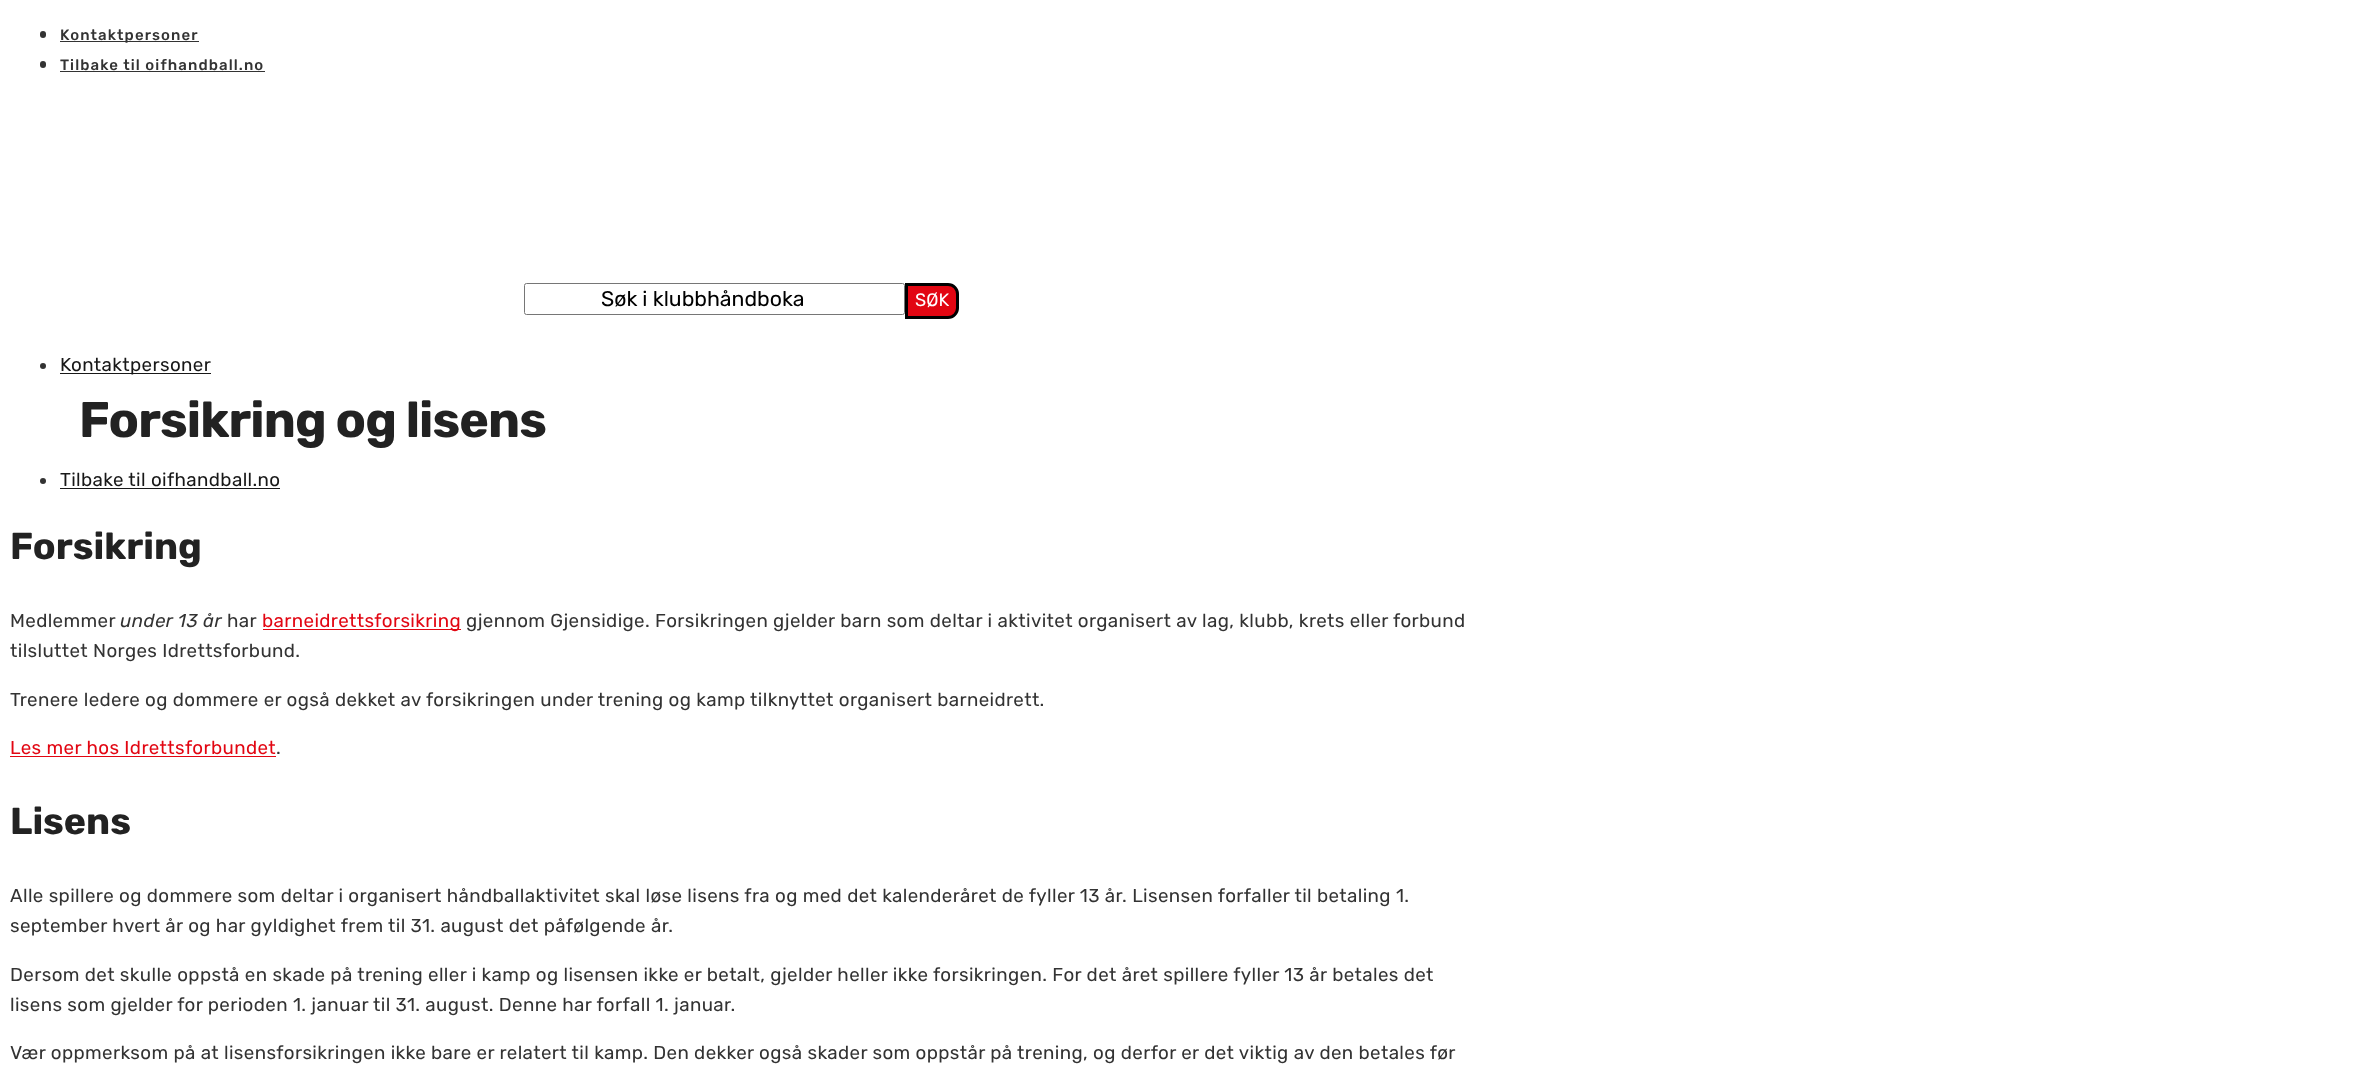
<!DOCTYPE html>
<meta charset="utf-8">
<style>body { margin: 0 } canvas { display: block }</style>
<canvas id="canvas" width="2376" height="1085"></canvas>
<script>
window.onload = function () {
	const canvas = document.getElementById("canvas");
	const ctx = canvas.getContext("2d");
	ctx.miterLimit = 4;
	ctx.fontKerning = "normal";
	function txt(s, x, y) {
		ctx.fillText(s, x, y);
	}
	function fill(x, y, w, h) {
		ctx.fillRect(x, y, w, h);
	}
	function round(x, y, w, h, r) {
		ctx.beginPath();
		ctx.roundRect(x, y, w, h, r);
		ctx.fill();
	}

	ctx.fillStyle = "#FFFFFF";
	fill(0, 0, 2376, 1085);
	ctx.fillStyle = "#333333";
	round(40, 31, 6, 7, 3);
	fill(60, 41, 139, 1);
	round(40, 61, 6, 7, 3);
	fill(60, 71, 205, 1);
	ctx.beginPath();
	ctx.roundRect(524.5, 283.5, 380, 31, 2);
	ctx.strokeStyle = "#767676";
	ctx.stroke();
	ctx.fillStyle = "#E20612";
	ctx.beginPath();
	ctx.roundRect(906.5, 284.5, 51, 33, [0, 9.5, 9.5, 0]);
	ctx.fill();
	ctx.strokeStyle = "#000000";
	ctx.lineWidth = 3;
	ctx.stroke();
	ctx.fillStyle = "#333333";
	ctx.beginPath();
	ctx.arc(43, 366, 3, 0, Math.PI * 2);
	ctx.fill();
	ctx.fillStyle = "#181818";
	fill(60, 373, 151, 1);
	ctx.fillStyle = "#333333";
	ctx.beginPath();
	ctx.arc(43, 481, 3, 0, Math.PI * 2);
	ctx.fill();
	ctx.fillStyle = "#181818";
	fill(60, 488, 220, 1);
	ctx.fillStyle = "#E20612";
	fill(263, 629, 198, 1);
	fill(10, 756, 266, 1);
	ctx.letterSpacing = "1.1px";
	ctx.font = "500 15px Rubik";
	ctx.fillStyle = "#333333";
	txt("Kontaktpersoner", 60, 40);
	txt("Tilbake til oifhandball.no", 60, 70);
	ctx.letterSpacing = "0px";
	ctx.font = "21.25px Rubik";
	ctx.fillStyle = "#000000";
	txt("Søk i klubbhåndboka", 601, 306);
	ctx.font = "18px Rubik";
	ctx.fillStyle = "#FFFFFF";
	txt("SØK", 915, 306);
	ctx.letterSpacing = "0.38px";
	ctx.font = "18.75px Rubik";
	ctx.fillStyle = "#181818";
	txt("Kontaktpersoner", 60, 371);
	txt("Tilbake til oifhandball.no", 60, 486);
	ctx.letterSpacing = "-0.9px";
	ctx.font = "bold 50px Rubik";
	ctx.fillStyle = "#222222";
	txt("Forsikring og lisens", 79, 437);
	ctx.letterSpacing = "0px";
	ctx.font = "bold 37.5px Rubik";
	txt("Forsikring", 10, 559);
	ctx.letterSpacing = "0.38px";
	ctx.font = "18.75px Rubik";
	ctx.fillStyle = "#333333";
	txt("Medlemmer", 10, 627);
	ctx.font = "italic 18.75px Rubik";
	txt("under 13 år", 120, 627);
	ctx.font = "18.75px Rubik";
	txt("har", 227, 627);
	ctx.fillStyle = "#E20612";
	txt("barneidrettsforsikring", 262, 627);
	ctx.fillStyle = "#333333";
	txt("gjennom Gjensidige. Forsikringen gjelder barn som deltar i aktivitet organisert av lag, klubb, krets eller forbund", 466, 627);
	txt("tilsluttet Norges Idrettsforbund.", 10, 657);
	txt("Trenere ledere og dommere er også dekket av forsikringen under trening og kamp tilknyttet organisert barneidrett.", 10, 706);
	ctx.fillStyle = "#E20612";
	txt("Les mer hos Idrettsforbundet", 10, 754);
	ctx.fillStyle = "#333333";
	txt(".", 276, 754);
	ctx.letterSpacing = "0px";
	ctx.font = "bold 37.5px Rubik";
	ctx.fillStyle = "#222222";
	txt("Lisens", 10, 834);
	ctx.letterSpacing = "0.38px";
	ctx.font = "18.75px Rubik";
	ctx.fillStyle = "#333333";
	txt("Alle spillere og dommere som deltar i organisert håndballaktivitet skal løse lisens fra og med det kalenderåret de fyller 13 år. Lisensen forfaller til betaling 1.", 10, 902);
	txt("september hvert år og har gyldighet frem til 31. august det påfølgende år.", 10, 932);
	txt("Dersom det skulle oppstå en skade på trening eller i kamp og lisensen ikke er betalt, gjelder heller ikke forsikringen. For det året spillere fyller 13 år betales det", 10, 981);
	txt("lisens som gjelder for perioden 1. januar til 31. august. Denne har forfall 1. januar.", 10, 1011);
	txt("Vær oppmerksom på at lisensforsikringen ikke bare er relatert til kamp. Den dekker også skader som oppstår på trening, og derfor er det viktig av den betales før", 10, 1059);
};
</script>
